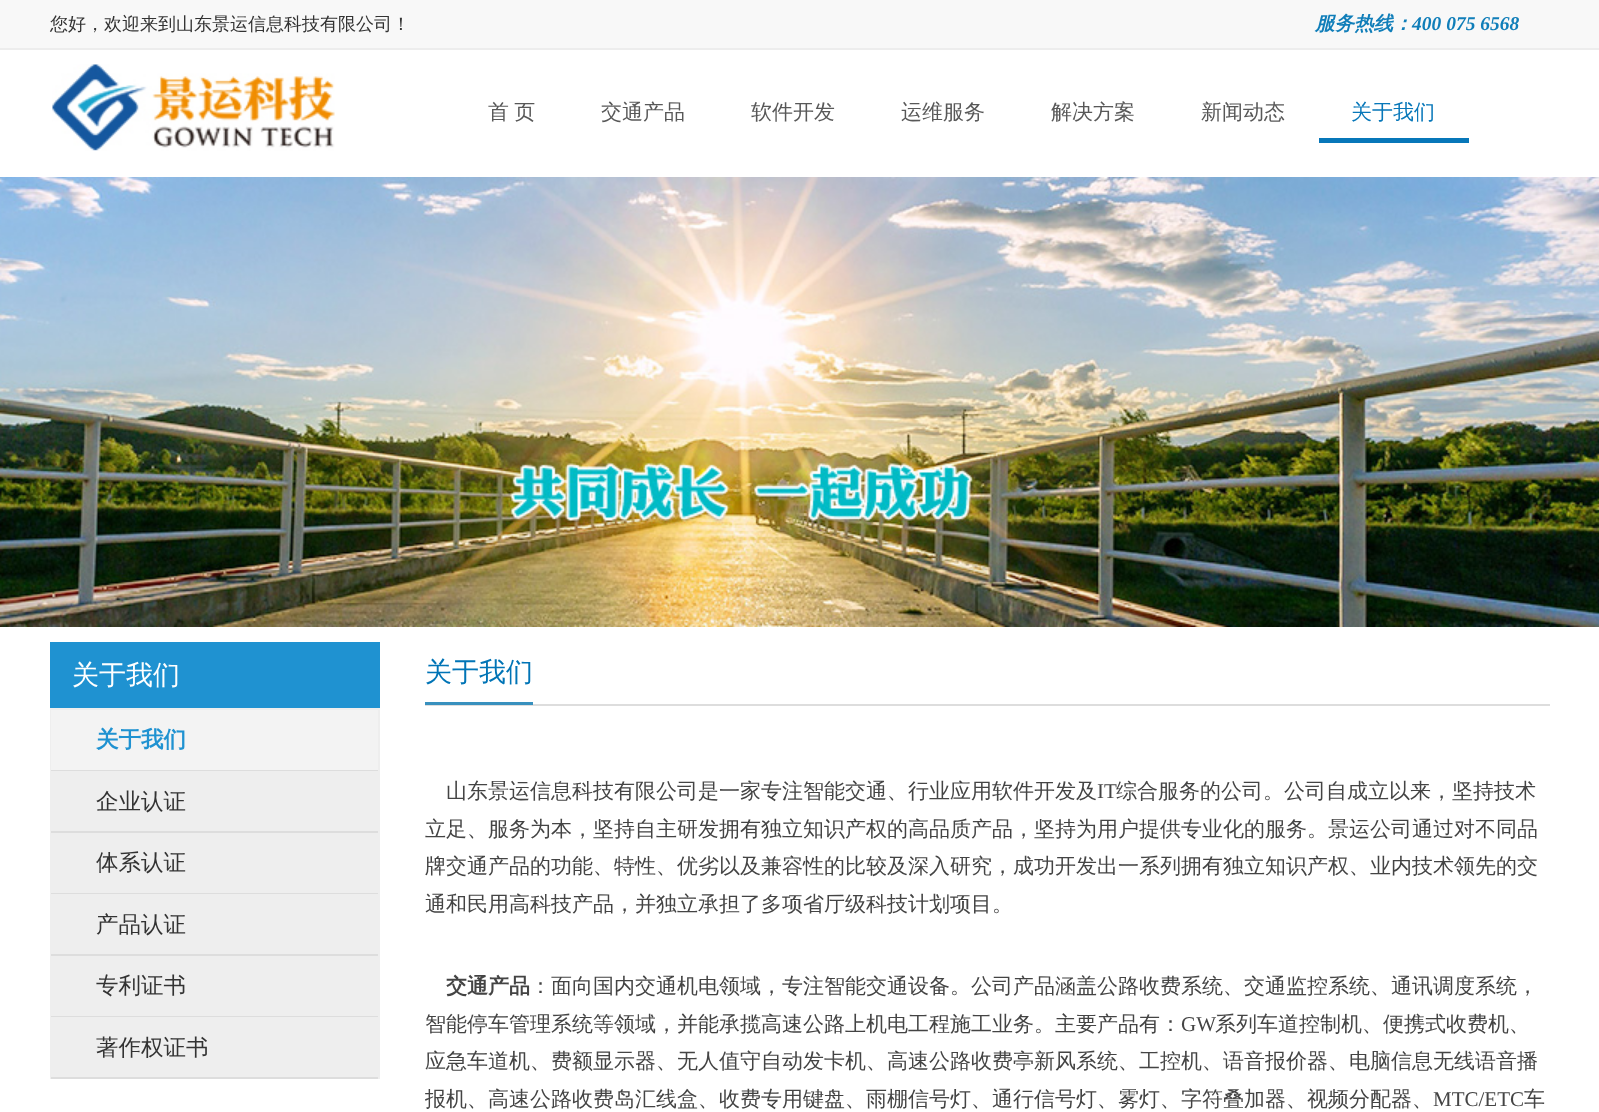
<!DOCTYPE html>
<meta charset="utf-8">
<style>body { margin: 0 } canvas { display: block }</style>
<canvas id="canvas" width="1599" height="1112"></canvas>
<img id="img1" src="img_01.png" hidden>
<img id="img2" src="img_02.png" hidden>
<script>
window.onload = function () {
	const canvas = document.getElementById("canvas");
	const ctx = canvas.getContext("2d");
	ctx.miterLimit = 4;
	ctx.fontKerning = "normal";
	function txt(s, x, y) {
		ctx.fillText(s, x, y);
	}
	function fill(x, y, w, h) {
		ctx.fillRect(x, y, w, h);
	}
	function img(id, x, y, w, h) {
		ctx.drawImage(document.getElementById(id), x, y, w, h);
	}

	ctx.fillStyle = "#FFFFFF";
	fill(0, 0, 1599, 1112);
	ctx.fillStyle = "#F8F8F8";
	fill(0, 0, 1599, 48);
	ctx.fillStyle = "#EDEDED";
	fill(0, 48, 1599, 2);
	img("img1", 52, 64, 283, 87);
	ctx.fillStyle = "#0777B9";
	fill(1319, 138, 150, 5);
	img("img2", 0, 177, 1599, 450);
	ctx.fillStyle = "#1F92D1";
	fill(50, 642, 330, 66);
	ctx.fillStyle = "#EEEEEE";
	fill(50, 708, 330, 2);
	fill(378, 708, 2, 371);
	fill(50, 708, 2, 371);
	ctx.fillStyle = "#F3F3F3";
	fill(51, 710, 327, 60);
	ctx.fillStyle = "#DDDDDD";
	fill(51, 770, 327, 1);
	ctx.fillStyle = "#EEEEEE";
	fill(52, 771, 326, 60);
	ctx.fillStyle = "#DDDDDD";
	fill(51, 831, 327, 2);
	ctx.fillStyle = "#EEEEEE";
	fill(52, 833, 326, 60);
	ctx.fillStyle = "#DDDDDD";
	fill(51, 893, 327, 1);
	ctx.fillStyle = "#EEEEEE";
	fill(52, 894, 326, 60);
	ctx.fillStyle = "#DDDDDD";
	fill(51, 954, 327, 2);
	ctx.fillStyle = "#EEEEEE";
	fill(52, 956, 326, 60);
	ctx.fillStyle = "#DDDDDD";
	fill(51, 1016, 327, 1);
	ctx.fillStyle = "#EEEEEE";
	fill(52, 1017, 326, 60);
	ctx.fillStyle = "#DDDDDD";
	fill(51, 1077, 327, 2);
	fill(425, 704, 1125, 2);
	ctx.fillStyle = "#3890BE";
	fill(425, 702, 108, 3);
	ctx.font = "500 18px WenQuanYi Zen Hei";
	ctx.fillStyle = "#333333";
	txt("您好，欢迎来到山东景运信息科技有限公司！", 50, 30);
	ctx.font = "italic bold 19.5px WenQuanYi Zen Hei";
	ctx.fillStyle = "#107EB9";
	txt("服务热线：", 1315, 30);
	ctx.font = "italic bold 19.5px Liberation Serif";
	txt("400 075 6568", 1412, 30);
	ctx.wordSpacing = "-1px";
	ctx.font = "500 21px WenQuanYi Zen Hei";
	ctx.fillStyle = "#585858";
	txt("首 页", 488, 119);
	ctx.wordSpacing = "0px";
	txt("交通产品", 601, 119);
	txt("软件开发", 751, 119);
	txt("运维服务", 901, 119);
	txt("解决方案", 1051, 119);
	txt("新闻动态", 1201, 119);
	ctx.fillStyle = "#0777B9";
	txt("关于我们", 1351, 119);
	ctx.font = "500 27px WenQuanYi Zen Hei";
	ctx.fillStyle = "#FFFFFF";
	txt("关于我们", 72, 684);
	ctx.font = "bold 22.5px WenQuanYi Zen Hei";
	ctx.fillStyle = "#1F92D1";
	txt("关于我们", 96, 747);
	ctx.font = "500 22.5px WenQuanYi Zen Hei";
	ctx.fillStyle = "#333333";
	txt("企业认证", 96, 809);
	txt("体系认证", 96, 870);
	txt("产品认证", 96, 932);
	txt("专利证书", 96, 993);
	txt("著作权证书", 96, 1055);
	ctx.font = "500 27px WenQuanYi Zen Hei";
	ctx.fillStyle = "#0074B6";
	txt("关于我们", 425, 681);
	ctx.font = "500 21px WenQuanYi Zen Hei";
	ctx.fillStyle = "#444444";
	txt("山东景运信息科技有限公司是一家专注智能交通、行业应用软件开发及", 446, 798);
	ctx.font = "21px Liberation Serif";
	txt("IT", 1097, 798);
	ctx.font = "500 21px WenQuanYi Zen Hei";
	txt("综合服务的公司。公司自成立以来，坚持技术", 1116, 798);
	txt("立足、服务为本，坚持自主研发拥有独立知识产权的高品质产品，坚持为用户提供专业化的服务。景运公司通过对不同品", 425, 836);
	txt("牌交通产品的功能、特性、优劣以及兼容性的比较及深入研究，成功开发出一系列拥有独立知识产权、业内技术领先的交", 425, 873);
	txt("通和民用高科技产品，并独立承担了多项省厅级科技计划项目。", 425, 911);
	ctx.font = "bold 21px WenQuanYi Zen Hei";
	txt("交通产品", 446, 993);
	ctx.font = "500 21px WenQuanYi Zen Hei";
	txt("：面向国内交通机电领域，专注智能交通设备。公司产品涵盖公路收费系统、交通监控系统、通讯调度系统，", 530, 993);
	txt("智能停车管理系统等领域，并能承揽高速公路上机电工程施工业务。主要产品有：", 425, 1031);
	ctx.font = "21px Liberation Serif";
	txt("GW", 1181, 1031);
	ctx.font = "500 21px WenQuanYi Zen Hei";
	txt("系列车道控制机、便携式收费机、", 1215, 1031);
	txt("应急车道机、费额显示器、无人值守自动发卡机、高速公路收费亭新风系统、工控机、语音报价器、电脑信息无线语音播", 425, 1068);
	txt("报机、高速公路收费岛汇线盒、收费专用键盘、雨棚信号灯、通行信号灯、雾灯、字符叠加器、视频分配器、", 425, 1106);
	ctx.font = "21px Liberation Serif";
	txt("MTC/ETC", 1433, 1106);
	ctx.font = "500 21px WenQuanYi Zen Hei";
	txt("车", 1524, 1106);
};
</script>
